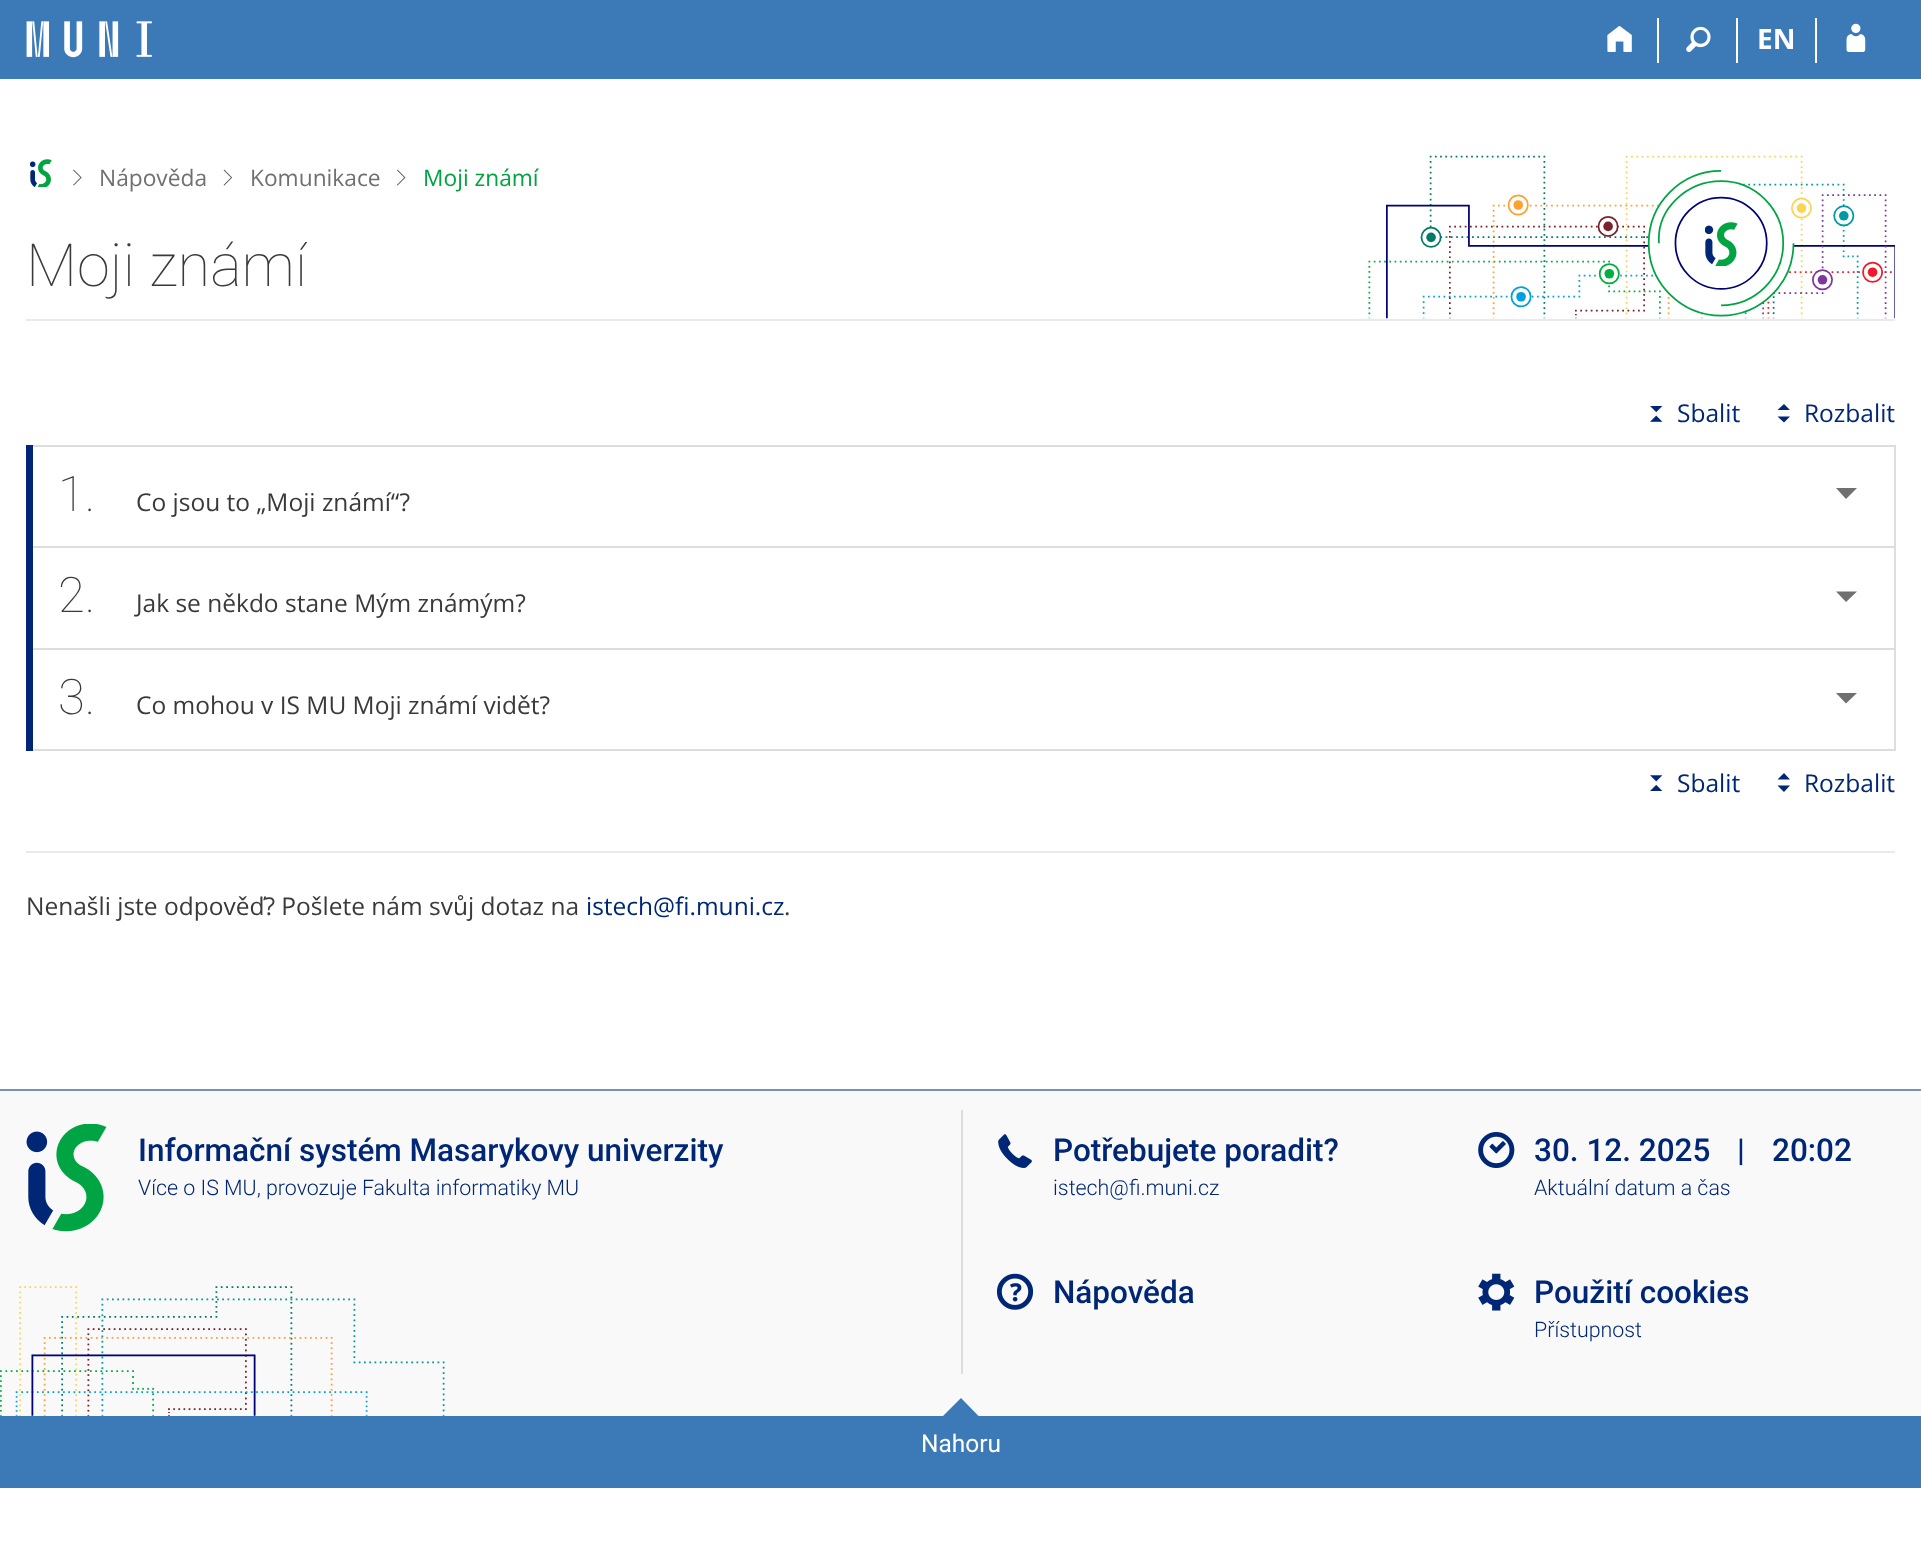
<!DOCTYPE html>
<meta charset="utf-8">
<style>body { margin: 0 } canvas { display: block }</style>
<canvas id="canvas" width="1921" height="1559"></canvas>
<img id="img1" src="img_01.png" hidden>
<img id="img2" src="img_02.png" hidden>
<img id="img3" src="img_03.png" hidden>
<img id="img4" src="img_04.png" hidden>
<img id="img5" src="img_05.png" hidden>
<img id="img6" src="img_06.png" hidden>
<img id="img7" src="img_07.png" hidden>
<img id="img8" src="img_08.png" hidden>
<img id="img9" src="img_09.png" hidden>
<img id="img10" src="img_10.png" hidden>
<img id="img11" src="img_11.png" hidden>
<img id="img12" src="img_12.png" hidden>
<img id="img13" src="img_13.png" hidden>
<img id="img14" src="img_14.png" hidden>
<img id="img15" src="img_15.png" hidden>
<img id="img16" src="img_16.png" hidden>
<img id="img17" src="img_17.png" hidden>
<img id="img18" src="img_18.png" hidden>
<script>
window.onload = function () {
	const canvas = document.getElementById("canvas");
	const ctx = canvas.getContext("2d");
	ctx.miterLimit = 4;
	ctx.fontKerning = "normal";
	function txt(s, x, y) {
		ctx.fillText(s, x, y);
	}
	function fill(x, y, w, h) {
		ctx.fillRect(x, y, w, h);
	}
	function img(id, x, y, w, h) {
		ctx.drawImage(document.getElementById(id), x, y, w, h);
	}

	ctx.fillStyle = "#FFFFFF";
	fill(0, 0, 1921, 1559);
	ctx.fillStyle = "#3C7AB7";
	fill(0, 0, 1921, 79);
	img("img1", 26, 21, 126, 37);
	ctx.fillStyle = "#FFFFFF";
	fill(1657, 18, 2, 45);
	img("img2", 1607, 26, 25, 26);
	fill(1736, 18, 2, 45);
	img("img3", 1686, 26, 25, 26);
	fill(1815, 18, 2, 45);
	img("img4", 1846, 23, 20, 29);
	img("img5", 30, 159, 22, 28);
	img("img6", 73, 169, 9, 17);
	img("img7", 223, 169, 10, 17);
	img("img8", 396, 169, 10, 17);
	img("img9", 1368, 155, 527, 164);
	img("img10", 1705, 222, 33, 44);
	ctx.fillStyle = "#EAEAEA";
	fill(26, 319, 1869, 2);
	img("img11", 1650, 406, 13, 16);
	ctx.fillStyle = "#002776";
	ctx.beginPath();
	ctx.moveTo(1790, 416.5);
	ctx.lineTo(1784, 422.5);
	ctx.lineTo(1777.5, 416.5);
	ctx.closePath();
	ctx.moveTo(1777.5, 410);
	ctx.lineTo(1784, 404);
	ctx.lineTo(1790, 410);
	ctx.closePath();
	ctx.fill();
	fill(26, 445, 7, 101);
	ctx.fillStyle = "#DDDDDD";
	fill(33, 445, 1862, 2);
	fill(1894, 445, 2, 101);
	ctx.fillStyle = "#707070";
	ctx.beginPath();
	ctx.moveTo(1836, 488);
	ctx.lineTo(1857, 488);
	ctx.lineTo(1846, 499);
	ctx.closePath();
	ctx.fill();
	ctx.fillStyle = "#002776";
	ctx.beginPath();
	ctx.moveTo(26, 546);
	ctx.lineTo(26, 648);
	ctx.lineTo(1888, 648);
	ctx.lineTo(33, 648);
	ctx.lineTo(33, 546);
	ctx.closePath();
	ctx.fill();
	ctx.fillStyle = "#DDDDDD";
	fill(33, 546, 1862, 2);
	fill(1894, 546, 2, 102);
	ctx.fillStyle = "#707070";
	ctx.beginPath();
	ctx.moveTo(1836, 591.5);
	ctx.lineTo(1857, 591.5);
	ctx.lineTo(1846, 602);
	ctx.closePath();
	ctx.fill();
	ctx.fillStyle = "#002776";
	ctx.beginPath();
	ctx.moveTo(26, 648);
	ctx.lineTo(26, 751);
	ctx.lineTo(1888, 751);
	ctx.lineTo(33, 751);
	ctx.lineTo(33, 648);
	ctx.closePath();
	ctx.fill();
	ctx.fillStyle = "#DDDDDD";
	fill(33, 648, 1862, 2);
	fill(1894, 648, 2, 103);
	fill(33, 749, 1862, 2);
	ctx.fillStyle = "#707070";
	ctx.beginPath();
	ctx.moveTo(1836, 693);
	ctx.lineTo(1857, 693);
	ctx.lineTo(1846, 703.5);
	ctx.closePath();
	ctx.fill();
	img("img12", 1650, 775, 13, 16);
	ctx.fillStyle = "#002776";
	ctx.beginPath();
	ctx.moveTo(1790, 785.5);
	ctx.lineTo(1784, 792);
	ctx.lineTo(1777.5, 785.5);
	ctx.closePath();
	ctx.moveTo(1777.5, 779.5);
	ctx.lineTo(1784, 773);
	ctx.lineTo(1790, 779.5);
	ctx.closePath();
	ctx.fill();
	ctx.fillStyle = "#EAEAEA";
	fill(26, 851, 1869, 2);
	ctx.fillStyle = "#F9F9F9";
	fill(0, 1091, 1921, 325);
	ctx.fillStyle = "#7D90B8";
	fill(0, 1089, 1921, 2);
	img("img13", 0, 1286, 445, 130);
	img("img14", 26, 1124, 81, 108);
	ctx.fillStyle = "#DDDDDD";
	fill(961, 1110, 2, 264);
	img("img15", 998, 1134, 34, 34);
	img("img16", 996, 1273, 38, 37);
	img("img17", 1478, 1132, 37, 36);
	img("img18", 1478, 1273, 37, 38);
	ctx.fillStyle = "#3C7AB7";
	fill(0, 1416, 1921, 72);
	ctx.beginPath();
	ctx.moveTo(980, 1417.5);
	ctx.lineTo(941.5, 1417.5);
	ctx.lineTo(961, 1398);
	ctx.closePath();
	ctx.fill();
	ctx.font = "bold 28px Open Sans";
	ctx.fillStyle = "#FFFFFF";
	txt("EN", 1757, 49);
	ctx.font = "22.75px Open Sans";
	ctx.fillStyle = "#707070";
	txt("Nápověda", 99, 186);
	txt("Komunikace", 250, 186);
	ctx.fillStyle = "#00A442";
	txt("Moji známí", 423, 186);
	ctx.font = "100 59.5px Roboto";
	ctx.fillStyle = "#3A3A3A";
	txt("Moji známí", 26, 286);
	ctx.font = "24.5px Open Sans";
	ctx.fillStyle = "#002776";
	txt("Sbalit", 1677, 422);
	txt("Rozbalit", 1804, 422);
	ctx.font = "100 49px Roboto";
	ctx.fillStyle = "#3A3A3A";
	txt("1.", 58, 511);
	ctx.font = "24.5px Open Sans";
	txt("Co jsou to „Moji známí“?", 136, 511);
	ctx.font = "100 49px Roboto";
	txt("2.", 58, 612);
	ctx.font = "24.5px Open Sans";
	txt("Jak se někdo stane Mým známým?", 136, 612);
	ctx.font = "100 49px Roboto";
	txt("3.", 58, 714);
	ctx.font = "24.5px Open Sans";
	txt("Co mohou v IS MU Moji známí vidět?", 136, 714);
	ctx.fillStyle = "#002776";
	txt("Sbalit", 1677, 792);
	txt("Rozbalit", 1804, 792);
	ctx.fillStyle = "#3A3A3A";
	txt("Nenašli jste odpověď? Pošlete nám svůj dotaz na", 26, 915);
	ctx.fillStyle = "#002776";
	txt("istech@fi.muni.cz", 586, 915);
	ctx.fillStyle = "#3A3A3A";
	txt(".", 784, 915);
	ctx.font = "500 31.5px Roboto";
	ctx.fillStyle = "#002776";
	txt("Informační systém Masarykovy univerzity", 138, 1161);
	ctx.font = "300 21.4px Roboto";
	txt("Více o IS MU, provozuje Fakulta informatiky MU", 138, 1195);
	ctx.font = "500 31.5px Roboto";
	txt("Potřebujete poradit?", 1053, 1161);
	ctx.font = "300 21.4px Roboto";
	txt("istech@fi.muni.cz", 1053, 1195);
	ctx.font = "500 31.5px Roboto";
	txt("Nápověda", 1053, 1303);
	txt("30. 12. 2025", 1534, 1161);
	txt("|", 1737, 1161);
	txt("20:02", 1772, 1161);
	ctx.font = "300 21.4px Roboto";
	txt("Aktuální datum a čas", 1534, 1195);
	ctx.font = "500 31.5px Roboto";
	txt("Použití cookies", 1534, 1303);
	ctx.font = "300 21.4px Roboto";
	txt("Přístupnost", 1534, 1337);
	ctx.font = "24.5px Roboto";
	ctx.fillStyle = "#FFFFFF";
	txt("Nahoru", 921, 1452);
};
</script>
